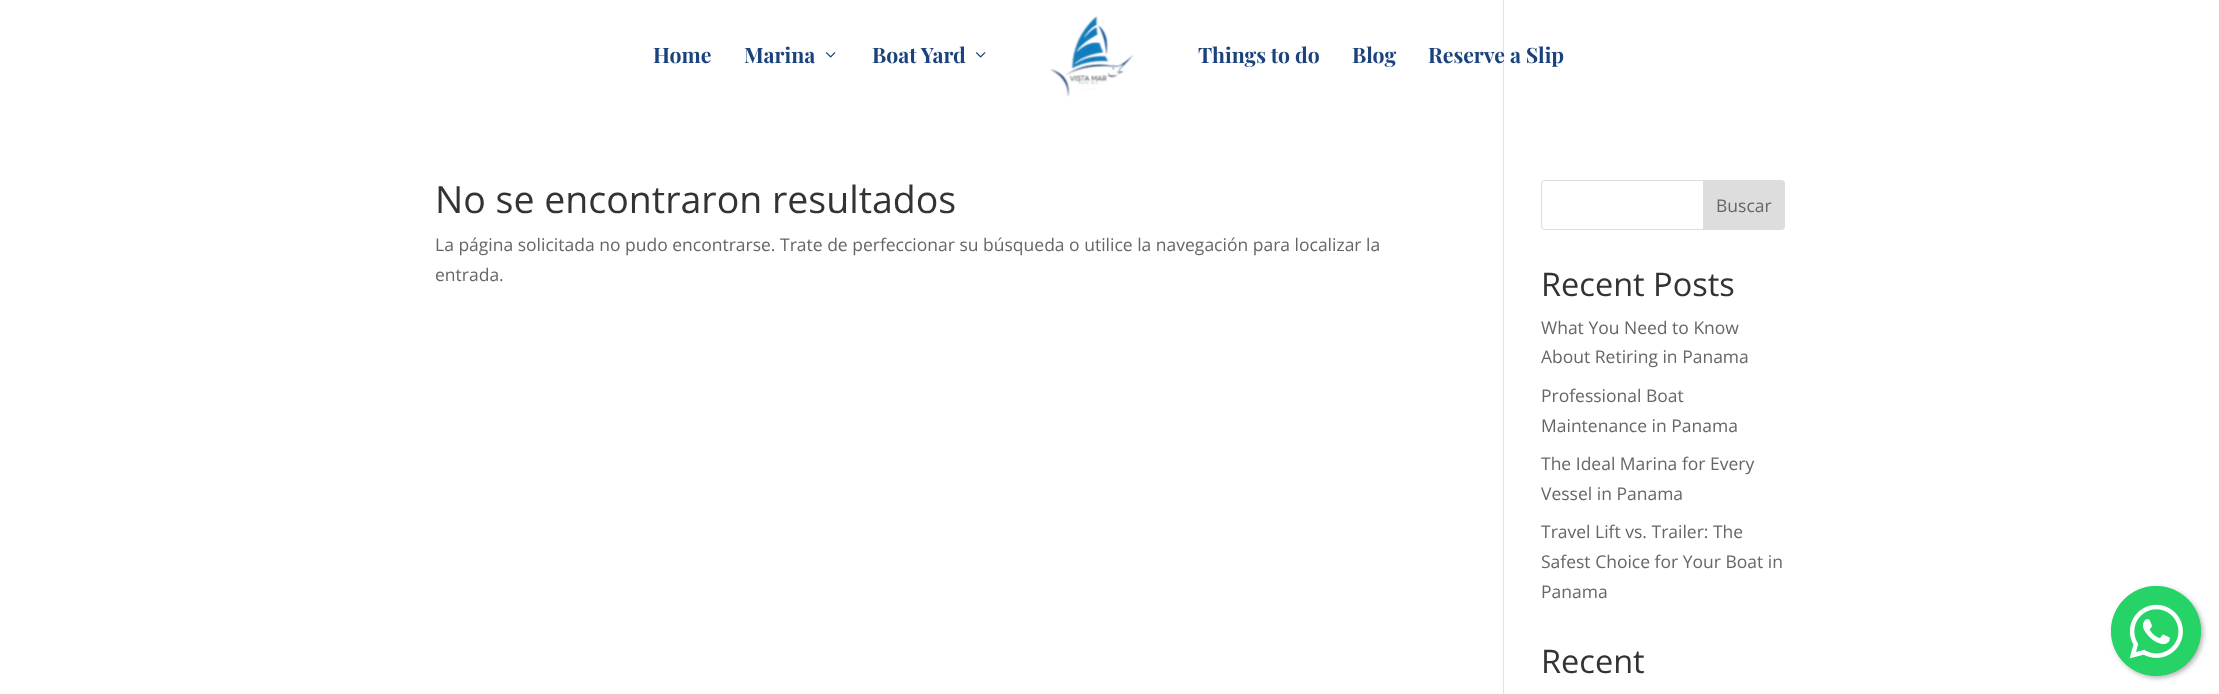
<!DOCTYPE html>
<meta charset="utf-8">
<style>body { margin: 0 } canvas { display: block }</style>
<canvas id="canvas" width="2219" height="694"></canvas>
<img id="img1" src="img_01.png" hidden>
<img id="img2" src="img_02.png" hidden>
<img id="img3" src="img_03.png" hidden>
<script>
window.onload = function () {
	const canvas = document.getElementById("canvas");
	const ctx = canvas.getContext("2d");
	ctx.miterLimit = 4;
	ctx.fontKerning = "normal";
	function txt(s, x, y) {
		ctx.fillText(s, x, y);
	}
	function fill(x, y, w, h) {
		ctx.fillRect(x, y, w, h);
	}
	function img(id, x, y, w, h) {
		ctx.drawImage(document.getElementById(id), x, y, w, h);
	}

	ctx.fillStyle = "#FFFFFF";
	fill(0, 0, 2219, 694);
	img("img1", 826, 52, 10, 6);
	img("img1", 976, 52, 10, 6);
	img("img2", 1050, 16, 84, 81);
	ctx.fillStyle = "#E2E2E2";
	fill(1503, 0, 1, 694);
	ctx.beginPath();
	ctx.roundRect(1541.5, 180.5, 243, 49, 3.5);
	ctx.strokeStyle = "#DDDDDD";
	ctx.stroke();
	ctx.fillStyle = "#DDDDDD";
	ctx.beginPath();
	ctx.roundRect(1703.5, 180.5, 81, 49, [0, 3.5, 3.5, 0]);
	ctx.fill();
	ctx.stroke();
	ctx.fillStyle = "rgba(60, 60, 60, 0.4)";
	ctx.filter = "blur(2.5px)";
	ctx.beginPath();
	ctx.roundRect(2113, 588, 90, 90, 45);
	ctx.fill();
	ctx.filter = "none";
	ctx.fillStyle = "#25D366";
	ctx.beginPath();
	ctx.arc(2156, 631, 45, 0, Math.PI * 2);
	ctx.fill();
	img("img3", 2111, 586, 90, 90);
	ctx.font = "bold 21.25px Playfair Display";
	ctx.fillStyle = "#1A427D";
	txt("Home", 653, 63);
	txt("Marina", 744, 63);
	txt("Boat Yard", 872, 63);
	txt("Things to do", 1198, 63);
	txt("Blog", 1352, 63);
	txt("Reserve a Slip", 1428, 63);
	ctx.font = "37.5px Open Sans";
	ctx.fillStyle = "#333333";
	txt("No se encontraron resultados", 435, 213);
	ctx.font = "17.5px Open Sans";
	ctx.fillStyle = "#666666";
	txt("La página solicitada no pudo encontrarse. Trate de perfeccionar su búsqueda o utilice la navegación para localizar la", 435, 251);
	txt("entrada.", 435, 281);
	txt("Buscar", 1716, 212);
	ctx.font = "32.5px Open Sans";
	ctx.fillStyle = "#333333";
	txt("Recent Posts", 1541, 296);
	ctx.font = "17.5px Open Sans";
	ctx.fillStyle = "#666666";
	txt("What You Need to Know", 1541, 334);
	txt("About Retiring in Panama", 1541, 363);
	txt("Professional Boat", 1541, 402);
	txt("Maintenance in Panama", 1541, 432);
	txt("The Ideal Marina for Every", 1541, 470);
	txt("Vessel in Panama", 1541, 500);
	txt("Travel Lift vs. Trailer: The", 1541, 538);
	txt("Safest Choice for Your Boat in", 1541, 568);
	txt("Panama", 1541, 598);
	ctx.font = "32.5px Open Sans";
	ctx.fillStyle = "#333333";
	txt("Recent", 1541, 673);
};
</script>
